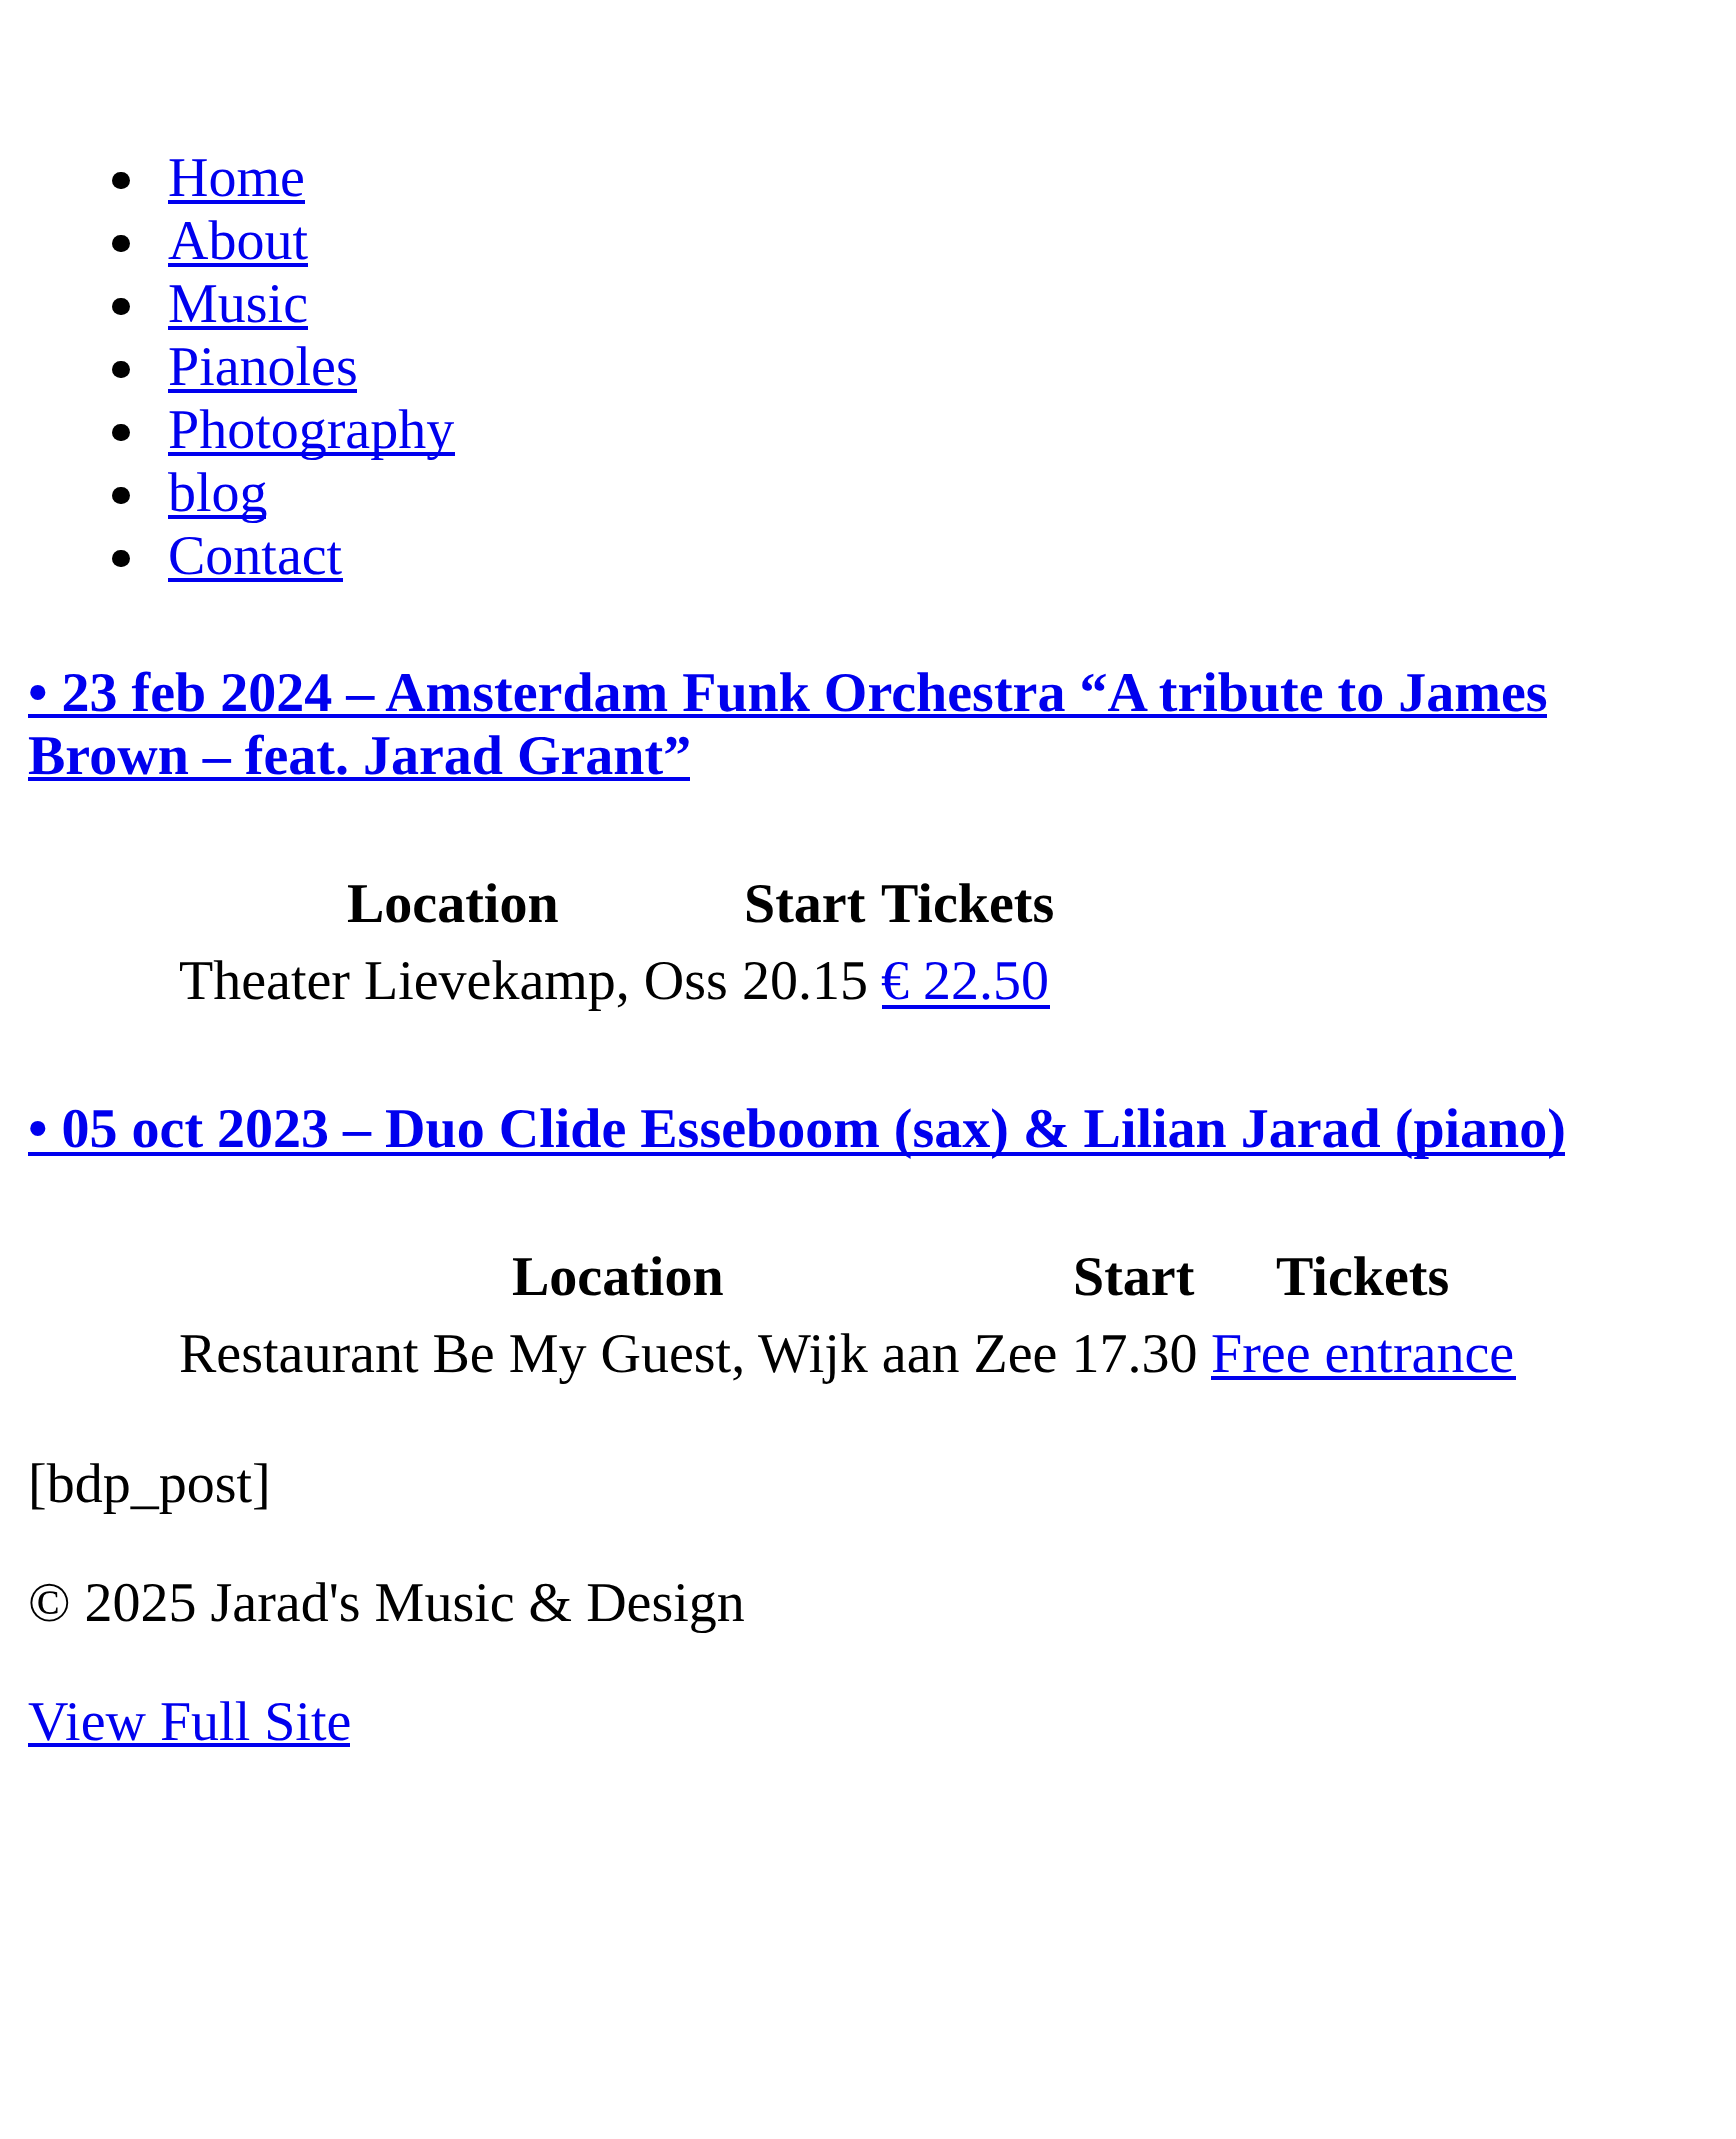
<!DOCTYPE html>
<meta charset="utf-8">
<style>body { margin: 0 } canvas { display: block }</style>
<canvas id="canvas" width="1736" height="2139"></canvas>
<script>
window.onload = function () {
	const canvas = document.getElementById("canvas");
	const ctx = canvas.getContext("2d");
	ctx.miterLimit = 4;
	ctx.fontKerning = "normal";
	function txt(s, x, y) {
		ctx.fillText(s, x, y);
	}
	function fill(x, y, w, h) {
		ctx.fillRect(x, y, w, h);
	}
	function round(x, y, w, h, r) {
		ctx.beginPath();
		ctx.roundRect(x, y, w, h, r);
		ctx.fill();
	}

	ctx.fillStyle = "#FFFFFF";
	fill(0, 0, 1736, 2139);
	ctx.fillStyle = "#000000";
	round(112, 172, 18, 17, 8.5);
	ctx.fillStyle = "#0000EE";
	fill(168, 200, 137, 4);
	ctx.fillStyle = "#000000";
	round(112, 235, 18, 17, 8.5);
	ctx.fillStyle = "#0000EE";
	fill(168, 263, 140, 4);
	ctx.fillStyle = "#000000";
	round(112, 298, 18, 17, 8.5);
	ctx.fillStyle = "#0000EE";
	fill(168, 326, 140, 4);
	ctx.fillStyle = "#000000";
	round(112, 361, 18, 17, 8.5);
	ctx.fillStyle = "#0000EE";
	fill(168, 389, 189, 4);
	ctx.fillStyle = "#000000";
	round(112, 424, 18, 17, 8.5);
	ctx.fillStyle = "#0000EE";
	fill(168, 452, 287, 4);
	ctx.fillStyle = "#000000";
	round(112, 487, 18, 17, 8.5);
	ctx.fillStyle = "#0000EE";
	fill(168, 515, 98, 4);
	ctx.fillStyle = "#000000";
	round(112, 550, 18, 17, 8.5);
	ctx.fillStyle = "#0000EE";
	fill(168, 578, 175, 4);
	fill(28, 714, 1519, 4);
	fill(28, 777, 662, 4);
	fill(882, 1005, 168, 4);
	fill(28, 1152, 1537, 4);
	fill(1211, 1376, 305, 4);
	fill(28, 1743, 322, 4);
	ctx.font = "56px Liberation Serif";
	txt("Home", 168, 196);
	txt("About", 168, 259);
	txt("Music", 168, 322);
	txt("Pianoles", 168, 385);
	txt("Photography", 168, 448);
	txt("blog", 168, 511);
	txt("Contact", 168, 574);
	ctx.font = "bold 56px Liberation Serif";
	txt("• 23 feb 2024 – Amsterdam Funk Orchestra “A tribute to James", 28, 711);
	txt("Brown – feat. Jarad Grant”", 28, 774);
	ctx.fillStyle = "#000000";
	txt("Location", 347, 922);
	txt("Start", 744, 922);
	txt("Tickets", 881, 922);
	ctx.font = "56px Liberation Serif";
	txt("Theater Lievekamp, Oss 20.15", 179, 999);
	ctx.fillStyle = "#0000EE";
	txt("€ 22.50", 881, 999);
	ctx.font = "bold 56px Liberation Serif";
	txt("• 05 oct 2023 – Duo Clide Esseboom (sax) & Lilian Jarad (piano)", 28, 1147);
	ctx.fillStyle = "#000000";
	txt("Location", 512, 1295);
	txt("Start", 1073, 1295);
	txt("Tickets", 1276, 1295);
	ctx.font = "56px Liberation Serif";
	txt("Restaurant Be My Guest, Wijk aan Zee 17.30", 179, 1372);
	ctx.fillStyle = "#0000EE";
	txt("Free entrance", 1211, 1372);
	ctx.fillStyle = "#000000";
	txt("[bdp_post]", 28, 1502);
	txt("© 2025 Jarad's Music & Design", 28, 1621);
	ctx.fillStyle = "#0000EE";
	txt("View Full Site", 28, 1740);
};
</script>
